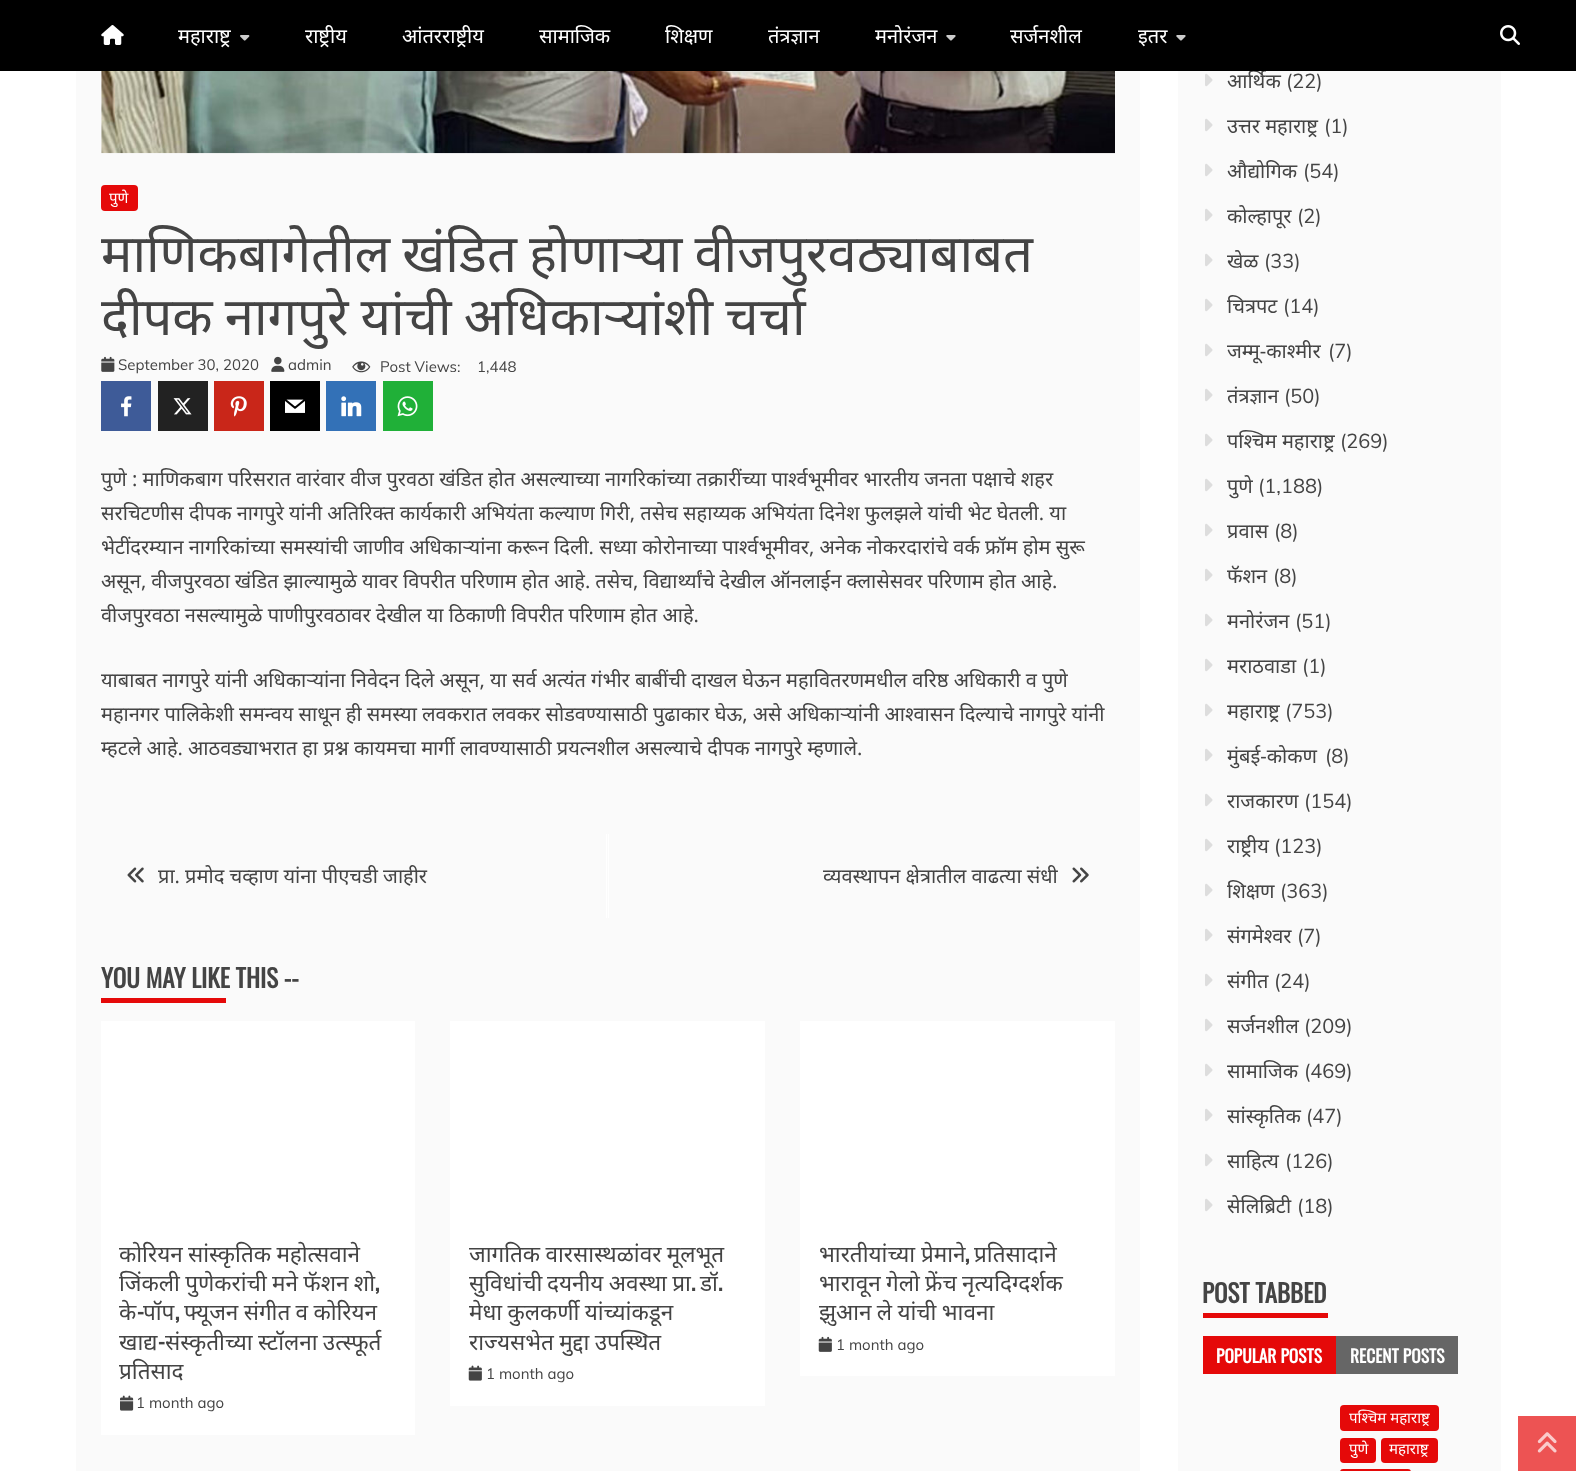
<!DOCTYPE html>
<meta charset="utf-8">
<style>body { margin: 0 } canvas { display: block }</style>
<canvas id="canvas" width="1576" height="1471"></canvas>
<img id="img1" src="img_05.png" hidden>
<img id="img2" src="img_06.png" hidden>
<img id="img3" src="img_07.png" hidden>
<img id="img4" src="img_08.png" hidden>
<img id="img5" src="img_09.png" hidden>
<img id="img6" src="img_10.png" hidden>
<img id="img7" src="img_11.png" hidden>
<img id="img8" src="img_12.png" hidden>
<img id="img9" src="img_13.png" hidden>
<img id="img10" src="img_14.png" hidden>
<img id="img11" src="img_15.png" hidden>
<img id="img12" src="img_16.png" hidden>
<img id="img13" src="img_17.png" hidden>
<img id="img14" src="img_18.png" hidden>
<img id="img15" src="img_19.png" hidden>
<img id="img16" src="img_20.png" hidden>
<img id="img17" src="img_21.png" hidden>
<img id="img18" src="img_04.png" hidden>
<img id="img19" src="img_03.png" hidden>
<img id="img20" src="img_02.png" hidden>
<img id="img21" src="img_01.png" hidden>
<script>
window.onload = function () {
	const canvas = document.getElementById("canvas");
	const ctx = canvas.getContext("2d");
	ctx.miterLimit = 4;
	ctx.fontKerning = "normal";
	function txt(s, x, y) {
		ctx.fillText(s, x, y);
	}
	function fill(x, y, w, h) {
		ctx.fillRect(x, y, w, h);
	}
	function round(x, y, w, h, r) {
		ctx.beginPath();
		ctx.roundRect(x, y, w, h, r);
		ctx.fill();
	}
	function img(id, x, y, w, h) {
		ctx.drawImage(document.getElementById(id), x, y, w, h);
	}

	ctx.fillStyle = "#FFFFFF";
	fill(0, 0, 1576, 1471);
	ctx.fillStyle = "#FAFAFA";
	fill(76, 71, 1064, 1400);
	img("img1", 101, 71, 1014, 83);
	ctx.fillStyle = "#E50909";
	round(101, 185, 37, 26, 4);
	img("img2", 101, 356, 14, 16);
	img("img3", 271, 356, 14, 16);
	img("img4", 352, 361, 19, 12);
	ctx.fillStyle = "#3E5B98";
	fill(101, 381, 50, 50);
	img("img5", 121, 396, 11, 21);
	ctx.fillStyle = "#222222";
	fill(158, 381, 50, 50);
	img("img6", 173, 398, 19, 17);
	ctx.fillStyle = "#C92619";
	fill(214, 381, 50, 50);
	img("img7", 230, 396, 17, 21);
	ctx.fillStyle = "#000000";
	fill(270, 381, 50, 50);
	img("img8", 285, 399, 20, 14);
	ctx.fillStyle = "#3371B7";
	fill(326, 381, 50, 50);
	img("img9", 341, 396, 21, 21);
	ctx.fillStyle = "#20B038";
	fill(383, 381, 50, 50);
	img("img10", 397, 396, 21, 21);
	ctx.fillStyle = "#FFFFFF";
	fill(606, 834, 1, 84);
	img("img11", 127, 867, 17, 16);
	fill(608, 834, 1, 84);
	img("img12", 1072, 867, 17, 16);
	ctx.fillStyle = "#E50909";
	fill(101, 998, 125, 5);
	ctx.fillStyle = "#FFFFFF";
	fill(101, 1021, 314, 414);
	img("img13", 120, 1395, 14, 16);
	fill(450, 1021, 315, 385);
	img("img14", 468, 1365, 14, 16);
	fill(800, 1021, 315, 355);
	img("img15", 818, 1336, 14, 16);
	ctx.fillStyle = "#FAFAFA";
	fill(1178, 71, 323, 1400);
	img("img16", 1205, 73, 8, 14);
	img("img16", 1205, 118, 8, 14);
	img("img16", 1205, 163, 8, 14);
	img("img16", 1205, 208, 8, 14);
	img("img16", 1205, 253, 8, 14);
	img("img16", 1205, 298, 8, 14);
	img("img16", 1205, 343, 8, 14);
	img("img16", 1205, 388, 8, 14);
	img("img16", 1205, 433, 8, 14);
	img("img16", 1205, 478, 8, 14);
	img("img16", 1205, 523, 8, 14);
	img("img16", 1205, 568, 8, 14);
	img("img16", 1205, 613, 8, 14);
	img("img16", 1205, 658, 8, 14);
	img("img16", 1205, 703, 8, 14);
	img("img16", 1205, 748, 8, 14);
	img("img16", 1205, 793, 8, 14);
	img("img16", 1205, 838, 8, 14);
	img("img16", 1205, 883, 8, 14);
	img("img16", 1205, 928, 8, 14);
	img("img16", 1205, 973, 8, 14);
	img("img16", 1205, 1018, 8, 14);
	img("img16", 1205, 1063, 8, 14);
	img("img16", 1205, 1108, 8, 14);
	img("img16", 1205, 1153, 8, 14);
	img("img16", 1205, 1198, 8, 14);
	ctx.fillStyle = "#E50909";
	fill(1203, 1313, 125, 5);
	fill(1203, 1336, 133, 38);
	ctx.fillStyle = "#666666";
	fill(1336, 1336, 122, 38);
	ctx.fillStyle = "#E50909";
	round(1340, 1405, 99, 26, 4);
	round(1340, 1438, 36, 25, 4);
	round(1381, 1438, 57, 25, 4);
	round(1340, 1469, 71, 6, 4);
	ctx.fillStyle = "#ED5353";
	fill(1518, 1416, 58, 55);
	img("img17", 1537, 1432, 20, 21);
	ctx.font = "15px Noto Sans";
	ctx.fillStyle = "#FFFFFF";
	txt("पुणे", 109, 203);
	ctx.wordSpacing = "-1.5px";
	ctx.font = "52.5px Noto Sans";
	ctx.fillStyle = "#444444";
	txt("माणिकबागेतील खंडित होणाऱ्या वीजपुरवठ्याबाबत", 101, 272);
	txt("दीपक नागपुरे यांची अधिकाऱ्यांशी चर्चा", 101, 335);
	ctx.wordSpacing = "0px";
	ctx.font = "15px Muli";
	txt("September 30, 2020", 118, 370);
	txt("admin", 288, 370);
	txt("Post Views:", 380, 372);
	txt("1,448", 477, 372);
	ctx.font = "20px Noto Sans";
	txt("पुणे : माणिकबाग परिसरात वारंवार वीज पुरवठा खंडित होत असल्याच्या नागरिकांच्या तक्रारींच्या पार्श्वभूमीवर भारतीय जनता पक्षाचे शहर", 101, 486);
	txt("सरचिटणीस दीपक नागपुरे यांनी अतिरिक्त कार्यकारी अभियंता कल्याण गिरी, तसेच सहाय्यक अभियंता दिनेश फुलझले यांची भेट घेतली. या", 101, 520);
	txt("भेटींदरम्यान नागरिकांच्या समस्यांची जाणीव अधिकाऱ्यांना करून दिली. सध्या कोरोनाच्या पार्श्वभूमीवर, अनेक नोकरदारांचे वर्क फ्रॉम होम सुरू", 101, 554);
	ctx.wordSpacing = "-0.2px";
	txt("असून, वीजपुरवठा खंडित झाल्यामुळे यावर विपरीत परिणाम होत आहे. तसेच, विद्यार्थ्यांचे देखील ऑनलाईन क्लासेसवर परिणाम होत आहे.", 101, 588);
	ctx.wordSpacing = "0px";
	txt("वीजपुरवठा नसल्यामुळे पाणीपुरवठावर देखील या ठिकाणी विपरीत परिणाम होत आहे.", 101, 622);
	txt("याबाबत नागपुरे यांनी अधिकाऱ्यांना निवेदन दिले असून, या सर्व अत्यंत गंभीर बाबींची दाखल घेऊन महावितरणमधील वरिष्ठ अधिकारी व पुणे", 101, 687);
	txt("महानगर पालिकेशी समन्वय साधून ही समस्या लवकरात लवकर सोडवण्यासाठी पुढाकार घेऊ, असे अधिकाऱ्यांनी आश्वासन दिल्याचे नागपुरे यांनी", 101, 721);
	txt("म्हटले आहे. आठवड्याभरात हा प्रश्न कायमचा मार्गी लावण्यासाठी प्रयत्नशील असल्याचे दीपक नागपुरे म्हणाले.", 101, 755);
	txt("प्रा. प्रमोद चव्हाण यांना पीएचडी जाहीर", 158, 883);
	txt("व्यवस्थापन क्षेत्रातील वाढत्या संधी", 823, 883);
	ctx.font = "bold 25px Oswald";
	txt("YOU MAY LIKE THIS --", 101, 988);
	ctx.wordSpacing = "-0.5px";
	ctx.font = "22.5px Noto Sans";
	txt("कोरियन सांस्कृतिक महोत्सवाने", 119, 1262);
	txt("जिंकली पुणेकरांची मने फॅशन शो", 119, 1291);
	ctx.wordSpacing = "0px";
	ctx.font = "bold 22.5px Oswald";
	txt(",", 375, 1291);
	ctx.font = "22.5px Noto Sans";
	txt("के", 119, 1320);
	ctx.font = "bold 22.5px Oswald";
	txt("-", 137, 1320);
	ctx.font = "22.5px Noto Sans";
	txt("पॉप", 143, 1320);
	ctx.wordSpacing = "-0.5px";
	txt("फ्यूजन संगीत व कोरियन", 184, 1320);
	ctx.wordSpacing = "0px";
	ctx.font = "bold 22.5px Oswald";
	txt(",", 175, 1320);
	ctx.font = "22.5px Noto Sans";
	txt("खाद्य", 119, 1350);
	ctx.font = "bold 22.5px Oswald";
	txt("-", 158, 1350);
	ctx.wordSpacing = "-0.5px";
	ctx.font = "22.5px Noto Sans";
	txt("संस्कृतीच्या स्टॉलना उत्स्फूर्त", 165, 1350);
	ctx.wordSpacing = "0px";
	txt("प्रतिसाद", 119, 1379);
	ctx.font = "15px Muli";
	txt("1 month ago", 136, 1408);
	ctx.wordSpacing = "-0.5px";
	ctx.font = "22.5px Noto Sans";
	txt("जागतिक वारसास्थळांवर मूलभूत", 469, 1262);
	ctx.wordSpacing = "0px";
	txt("सुविधांची", 469, 1291);
	ctx.wordSpacing = "-0.5px";
	txt("दयनीय अवस्था प्रा", 547, 1291);
	ctx.wordSpacing = "0px";
	ctx.font = "bold 22.5px Oswald";
	txt(".", 691, 1291);
	ctx.font = "22.5px Noto Sans";
	txt("डॉ", 700, 1291);
	ctx.font = "bold 22.5px Oswald";
	txt(".", 718, 1291);
	ctx.wordSpacing = "-0.5px";
	ctx.font = "22.5px Noto Sans";
	txt("मेधा कुलकर्णी यांच्यांकडून", 469, 1320);
	txt("राज्यसभेत मुद्दा उपस्थित", 469, 1350);
	ctx.wordSpacing = "0px";
	ctx.font = "15px Muli";
	txt("1 month ago", 486, 1379);
	ctx.font = "22.5px Noto Sans";
	txt("भारतीयांच्या प्रेमाने", 819, 1262);
	ctx.font = "bold 22.5px Oswald";
	txt(",", 965, 1262);
	ctx.font = "22.5px Noto Sans";
	txt("प्रतिसादाने", 974, 1262);
	ctx.wordSpacing = "-0.5px";
	txt("भारावून गेलो फ्रेंच नृत्यदिग्दर्शक", 819, 1291);
	txt("झुआन ले यांची भावना", 819, 1320);
	ctx.wordSpacing = "0px";
	ctx.font = "15px Muli";
	txt("1 month ago", 836, 1350);
	ctx.font = "20px Noto Sans";
	txt("आर्थिक", 1227, 88);
	ctx.fillStyle = "#000000";
	fill(0, 0, 1576, 71);
	img("img18", 1500, 25, 20, 20);
	img("img19", 1176, 35, 10, 6);
	ctx.fillStyle = "#FFFFFF";
	txt("इतर", 1138, 43);
	txt("सर्जनशील", 1010, 43);
	img("img19", 946, 35, 10, 6);
	txt("मनोरंजन", 875, 43);
	txt("तंत्रज्ञान", 768, 43);
	txt("शिक्षण", 665, 43);
	txt("सामाजिक", 539, 43);
	txt("आंतरराष्ट्रीय", 402, 43);
	txt("राष्ट्रीय", 305, 43);
	img("img20", 240, 35, 10, 6);
	txt("महाराष्ट्र", 178, 43);
	img("img21", 101, 25, 23, 20);
	ctx.font = "20px Muli";
	ctx.fillStyle = "#444444";
	txt("(22)", 1286, 88);
	ctx.font = "20px Noto Sans";
	txt("उत्तर महाराष्ट्र", 1227, 133);
	ctx.font = "20px Muli";
	txt("(1)", 1324, 133);
	ctx.font = "20px Noto Sans";
	txt("औद्योगिक", 1227, 178);
	ctx.font = "20px Muli";
	txt("(54)", 1303, 178);
	ctx.font = "20px Noto Sans";
	txt("कोल्हापूर", 1227, 223);
	ctx.font = "20px Muli";
	txt("(2)", 1297, 223);
	ctx.font = "20px Noto Sans";
	txt("खेळ", 1227, 268);
	ctx.font = "20px Muli";
	txt("(33)", 1264, 268);
	ctx.font = "20px Noto Sans";
	txt("चित्रपट", 1227, 313);
	ctx.font = "20px Muli";
	txt("(14)", 1283, 313);
	ctx.font = "20px Noto Sans";
	txt("जम्मू-काश्मीर", 1227, 358);
	ctx.font = "20px Muli";
	txt("(7)", 1328, 358);
	ctx.font = "20px Noto Sans";
	txt("तंत्रज्ञान", 1227, 403);
	ctx.font = "20px Muli";
	txt("(50)", 1284, 403);
	ctx.font = "20px Noto Sans";
	txt("पश्चिम महाराष्ट्र", 1227, 448);
	ctx.font = "20px Muli";
	txt("(269)", 1340, 448);
	ctx.font = "20px Noto Sans";
	txt("पुणे", 1227, 493);
	ctx.font = "20px Muli";
	txt("(1,188)", 1258, 493);
	ctx.font = "20px Noto Sans";
	txt("प्रवास", 1227, 538);
	ctx.font = "20px Muli";
	txt("(8)", 1274, 538);
	ctx.font = "20px Noto Sans";
	txt("फॅशन", 1227, 583);
	ctx.font = "20px Muli";
	txt("(8)", 1273, 583);
	ctx.font = "20px Noto Sans";
	txt("मनोरंजन", 1227, 628);
	ctx.font = "20px Muli";
	txt("(51)", 1295, 628);
	ctx.font = "20px Noto Sans";
	txt("मराठवाडा", 1227, 673);
	ctx.font = "20px Muli";
	txt("(1)", 1302, 673);
	ctx.font = "20px Noto Sans";
	txt("महाराष्ट्र", 1227, 718);
	ctx.font = "20px Muli";
	txt("(753)", 1285, 718);
	ctx.font = "20px Noto Sans";
	txt("मुंबई-कोकण", 1227, 763);
	ctx.font = "20px Muli";
	txt("(8)", 1325, 763);
	ctx.font = "20px Noto Sans";
	txt("राजकारण", 1227, 808);
	ctx.font = "20px Muli";
	txt("(154)", 1304, 808);
	ctx.font = "20px Noto Sans";
	txt("राष्ट्रीय", 1227, 853);
	ctx.font = "20px Muli";
	txt("(123)", 1274, 853);
	ctx.font = "20px Noto Sans";
	txt("शिक्षण", 1227, 898);
	ctx.font = "20px Muli";
	txt("(363)", 1280, 898);
	ctx.font = "20px Noto Sans";
	txt("संगमेश्वर", 1227, 943);
	ctx.font = "20px Muli";
	txt("(7)", 1297, 943);
	ctx.font = "20px Noto Sans";
	txt("संगीत", 1227, 988);
	ctx.font = "20px Muli";
	txt("(24)", 1274, 988);
	ctx.font = "20px Noto Sans";
	txt("सर्जनशील", 1227, 1033);
	ctx.font = "20px Muli";
	txt("(209)", 1304, 1033);
	ctx.font = "20px Noto Sans";
	txt("सामाजिक", 1227, 1078);
	ctx.font = "20px Muli";
	txt("(469)", 1304, 1078);
	ctx.font = "20px Noto Sans";
	txt("सांस्कृतिक", 1227, 1123);
	ctx.font = "20px Muli";
	txt("(47)", 1306, 1123);
	ctx.font = "20px Noto Sans";
	txt("साहित्य", 1227, 1168);
	ctx.font = "20px Muli";
	txt("(126)", 1285, 1168);
	ctx.font = "20px Noto Sans";
	txt("सेलिब्रिटी", 1227, 1213);
	ctx.font = "20px Muli";
	txt("(18)", 1297, 1213);
	ctx.font = "bold 25px Oswald";
	txt("POST TABBED", 1202, 1303);
	ctx.font = "bold 17.5px Oswald";
	ctx.fillStyle = "#FFFFFF";
	txt("POPULAR POSTS", 1216, 1363);
	txt("RECENT POSTS", 1350, 1363);
	ctx.font = "15px Noto Sans";
	txt("पश्चिम महाराष्ट्र", 1349, 1423);
	txt("पुणे", 1349, 1454);
	txt("महाराष्ट्र", 1389, 1454);
};
</script>
